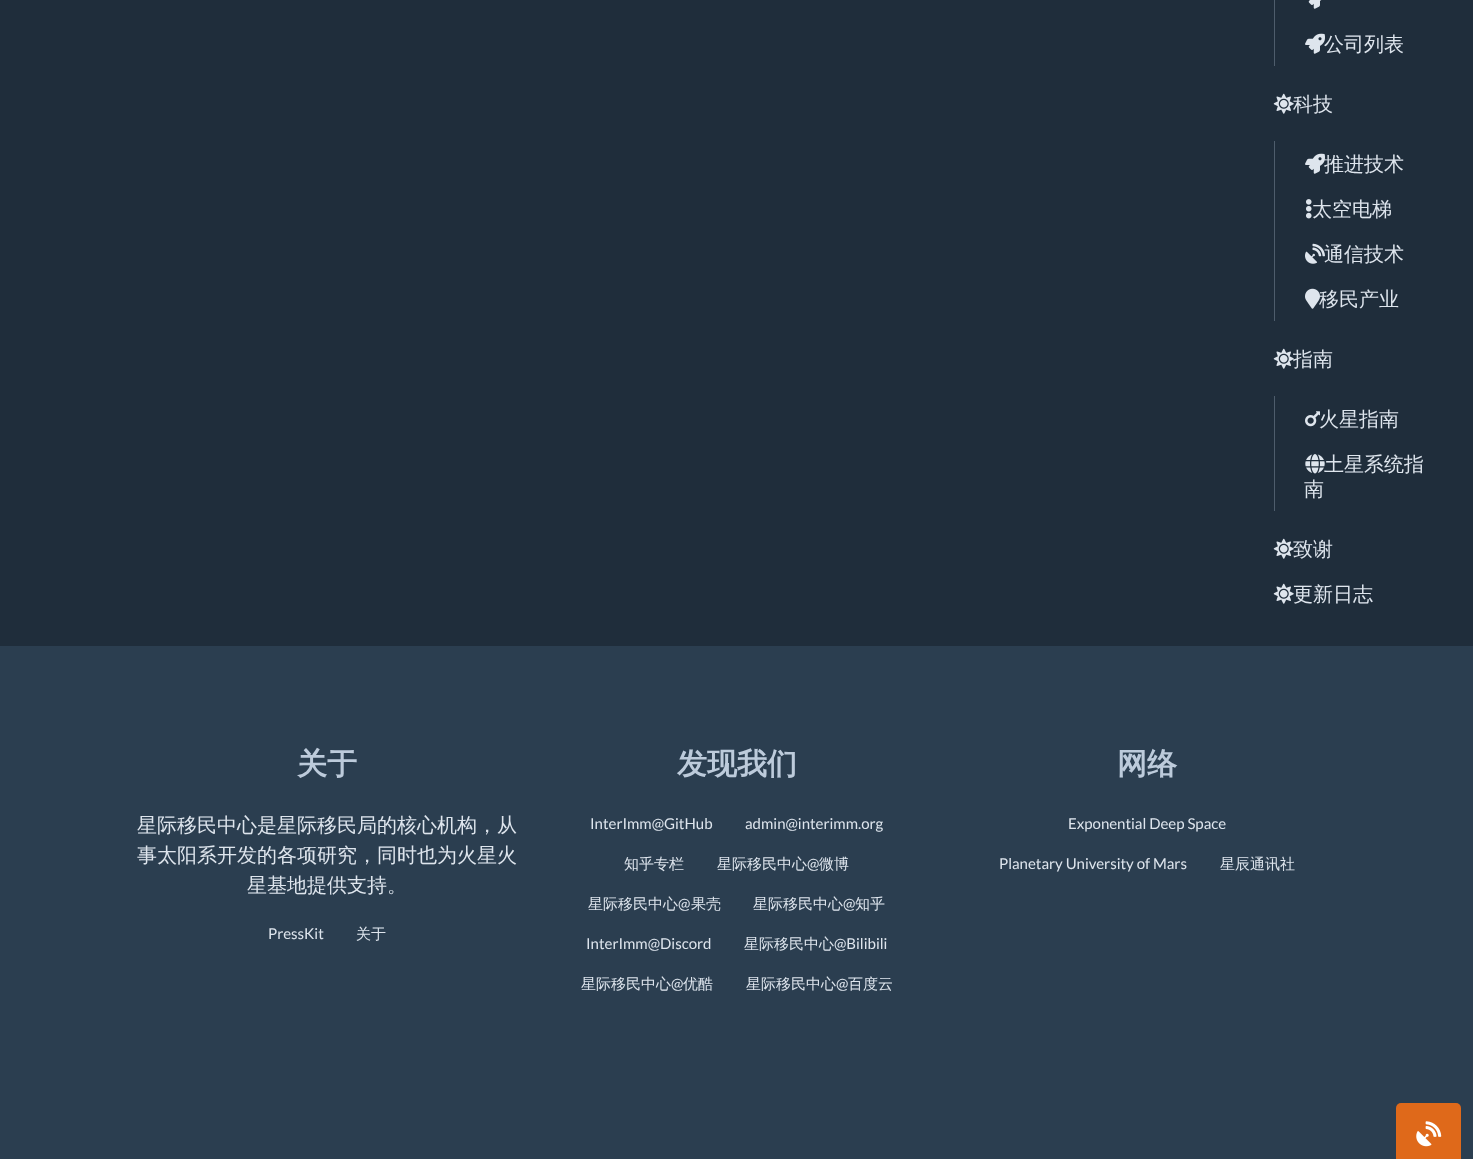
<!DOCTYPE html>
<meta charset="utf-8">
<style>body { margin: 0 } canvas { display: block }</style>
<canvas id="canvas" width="1473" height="1159"></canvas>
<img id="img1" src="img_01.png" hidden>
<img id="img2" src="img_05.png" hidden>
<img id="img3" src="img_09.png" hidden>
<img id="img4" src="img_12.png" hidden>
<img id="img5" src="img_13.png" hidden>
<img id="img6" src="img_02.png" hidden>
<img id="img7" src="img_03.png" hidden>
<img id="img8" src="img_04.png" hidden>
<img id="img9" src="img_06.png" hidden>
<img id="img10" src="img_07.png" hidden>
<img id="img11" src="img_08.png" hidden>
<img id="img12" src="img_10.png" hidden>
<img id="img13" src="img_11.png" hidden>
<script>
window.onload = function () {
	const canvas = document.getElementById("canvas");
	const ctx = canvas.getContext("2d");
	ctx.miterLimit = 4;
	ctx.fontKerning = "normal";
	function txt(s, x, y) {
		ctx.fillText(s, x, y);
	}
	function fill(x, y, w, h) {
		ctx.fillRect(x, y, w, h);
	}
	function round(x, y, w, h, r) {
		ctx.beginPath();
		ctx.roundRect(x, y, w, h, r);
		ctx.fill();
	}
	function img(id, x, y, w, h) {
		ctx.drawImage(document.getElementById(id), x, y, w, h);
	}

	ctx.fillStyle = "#1F2D3B";
	fill(0, 0, 1473, 1159);
	ctx.fillStyle = "#4E5D6C";
	fill(1274, 0, 1, 66);
	img("img1", 1308, 0, 14, 9);
	fill(1274, 141, 1, 180);
	img("img2", 1306, 199, 6, 20);
	fill(1274, 396, 1, 115);
	img("img3", 1305, 411, 15, 16);
	img("img4", 1273, 583, 21, 21);
	ctx.fillStyle = "#2B3E50";
	fill(0, 646, 1473, 513);
	ctx.fillStyle = "#DF691A";
	round(1396, 1103, 65, 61, 5);
	img("img5", 1416, 1121, 26, 26);
	ctx.font = "500 20px WenQuanYi Zen Hei";
	ctx.fillStyle = "#DEE5ED";
	txt("公司列表", 1324, 51);
	img("img6", 1305, 33, 20, 21);
	txt("科技", 1293, 111);
	img("img7", 1273, 93, 21, 21);
	txt("推进技术", 1324, 171);
	img("img8", 1305, 153, 20, 21);
	txt("太空电梯", 1312, 216);
	txt("通信技术", 1324, 261);
	img("img9", 1305, 243, 20, 21);
	txt("移民产业", 1319, 306);
	img("img10", 1305, 288, 15, 21);
	txt("指南", 1293, 366);
	img("img11", 1273, 348, 21, 21);
	txt("火星指南", 1319, 426);
	txt("土星系统指", 1324, 471);
	img("img12", 1305, 454, 20, 20);
	txt("南", 1304, 496);
	txt("致谢", 1293, 556);
	img("img13", 1273, 538, 21, 21);
	txt("更新日志", 1293, 601);
	ctx.font = "bold 30px WenQuanYi Zen Hei";
	ctx.fillStyle = "#BDCBDB";
	txt("关于", 297, 774);
	ctx.font = "500 20px WenQuanYi Zen Hei";
	ctx.fillStyle = "#DEE5ED";
	txt("星际移民中心是星际移民局的核心机构，从", 137, 832);
	txt("事太阳系开发的各项研究，同时也为火星火", 137, 862);
	txt("星基地提供支持。", 247, 892);
	ctx.font = "15px Lato";
	txt("PressKit", 268, 939);
	ctx.font = "500 15px WenQuanYi Zen Hei";
	txt("关于", 356, 939);
	ctx.font = "bold 30px WenQuanYi Zen Hei";
	ctx.fillStyle = "#BDCBDB";
	txt("发现我们", 677, 774);
	ctx.font = "15px Lato";
	ctx.fillStyle = "#DEE5ED";
	txt("InterImm@GitHub", 590, 829);
	txt("admin@interimm.org", 745, 829);
	ctx.font = "500 15px WenQuanYi Zen Hei";
	txt("知乎专栏", 624, 869);
	txt("星际移民中心", 717, 869);
	ctx.font = "15px Lato";
	txt("@", 807, 869);
	ctx.font = "500 15px WenQuanYi Zen Hei";
	txt("微博", 819, 869);
	txt("星际移民中心", 588, 909);
	ctx.font = "15px Lato";
	txt("@", 678, 909);
	ctx.font = "500 15px WenQuanYi Zen Hei";
	txt("果壳", 691, 909);
	txt("星际移民中心", 753, 909);
	ctx.font = "15px Lato";
	txt("@", 843, 909);
	ctx.font = "500 15px WenQuanYi Zen Hei";
	txt("知乎", 855, 909);
	ctx.font = "15px Lato";
	txt("InterImm@Discord", 586, 949);
	ctx.font = "500 15px WenQuanYi Zen Hei";
	txt("星际移民中心", 744, 949);
	ctx.font = "15px Lato";
	txt("@Bilibili", 834, 949);
	ctx.font = "500 15px WenQuanYi Zen Hei";
	txt("星际移民中心", 581, 989);
	ctx.font = "15px Lato";
	txt("@", 671, 989);
	ctx.font = "500 15px WenQuanYi Zen Hei";
	txt("优酷", 683, 989);
	txt("星际移民中心", 746, 989);
	ctx.font = "15px Lato";
	txt("@", 836, 989);
	ctx.font = "500 15px WenQuanYi Zen Hei";
	txt("百度云", 848, 989);
	ctx.font = "bold 30px WenQuanYi Zen Hei";
	ctx.fillStyle = "#BDCBDB";
	txt("网络", 1117, 774);
	ctx.font = "15px Lato";
	ctx.fillStyle = "#DEE5ED";
	txt("Exponential Deep Space", 1068, 829);
	txt("Planetary University of Mars", 999, 869);
	ctx.font = "500 15px WenQuanYi Zen Hei";
	txt("星辰通讯社", 1220, 869);
};
</script>
